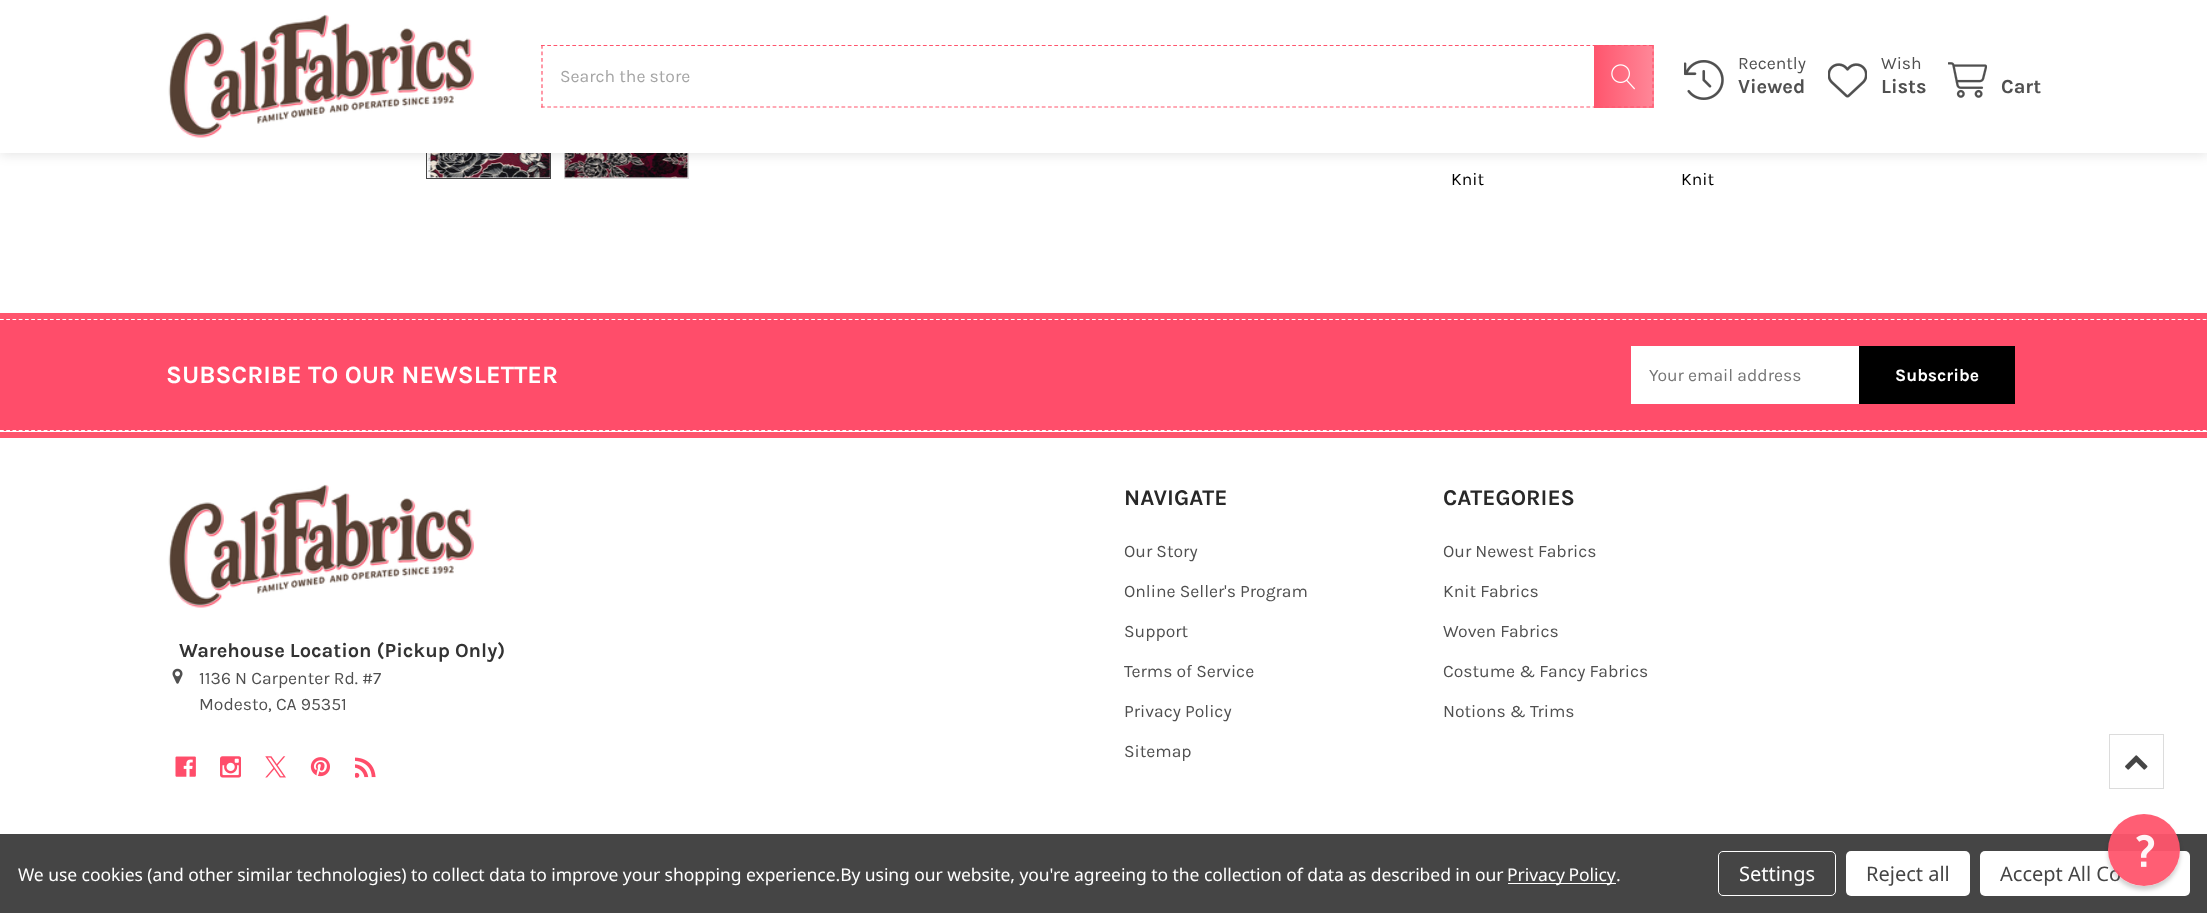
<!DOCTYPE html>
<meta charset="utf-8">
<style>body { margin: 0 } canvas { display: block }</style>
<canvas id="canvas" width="2207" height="913"></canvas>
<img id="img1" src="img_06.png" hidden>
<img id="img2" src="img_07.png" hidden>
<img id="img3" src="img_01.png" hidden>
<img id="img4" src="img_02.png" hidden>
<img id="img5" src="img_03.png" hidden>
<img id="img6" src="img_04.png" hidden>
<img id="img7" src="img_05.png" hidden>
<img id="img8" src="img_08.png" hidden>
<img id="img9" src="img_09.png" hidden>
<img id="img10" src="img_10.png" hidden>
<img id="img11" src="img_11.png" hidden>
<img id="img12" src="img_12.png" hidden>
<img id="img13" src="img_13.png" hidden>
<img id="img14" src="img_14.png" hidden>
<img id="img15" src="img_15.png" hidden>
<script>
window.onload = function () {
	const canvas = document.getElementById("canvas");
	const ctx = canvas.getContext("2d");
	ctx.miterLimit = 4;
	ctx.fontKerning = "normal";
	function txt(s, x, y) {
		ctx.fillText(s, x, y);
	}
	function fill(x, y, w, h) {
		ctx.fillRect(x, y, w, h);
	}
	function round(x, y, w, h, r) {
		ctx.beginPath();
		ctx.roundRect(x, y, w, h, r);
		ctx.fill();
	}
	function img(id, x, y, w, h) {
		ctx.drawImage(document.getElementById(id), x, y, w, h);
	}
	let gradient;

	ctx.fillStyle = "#FFFFFF";
	fill(0, 0, 2207, 913);
	ctx.strokeStyle = "#454545";
	ctx.strokeRect(426.5, 54.5, 124, 124);
	img("img1", 427, 153, 123, 25);
	ctx.strokeStyle = "#DCDCDC";
	ctx.strokeRect(564.5, 54.5, 124, 124);
	img("img2", 564, 153, 124, 25);
	ctx.fillStyle = "rgba(0, 0, 0, 0.1)";
	ctx.filter = "blur(6px)";
	ctx.beginPath();
	ctx.rect(0, 3, 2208, 152);
	ctx.fill();
	ctx.filter = "none";
	ctx.fillStyle = "#FFFFFF";
	fill(0, 0, 2207, 153);
	img("img3", 168, 14, 306, 124);
	ctx.beginPath();
	ctx.moveTo(541, 45.5);
	ctx.lineTo(1654, 45.5);
	ctx.strokeStyle = "#FF556D";
	ctx.lineWidth = 1.2;
	ctx.setLineDash([3.75, 2.51]);
	ctx.stroke();
	ctx.beginPath();
	ctx.moveTo(1653, 45);
	ctx.lineTo(1653, 107.5);
	ctx.setLineDash([3.75, 2.78]);
	ctx.stroke();
	ctx.beginPath();
	ctx.moveTo(541, 107);
	ctx.lineTo(1654, 107);
	ctx.setLineDash([3.75, 2.51]);
	ctx.stroke();
	ctx.beginPath();
	ctx.moveTo(542, 45);
	ctx.lineTo(542, 107.5);
	ctx.setLineDash([3.75, 2.78]);
	ctx.stroke();
	gradient = ctx.createLinearGradient(1594, 76, 1654, 76);
	gradient.addColorStop(0, "#FF556D");
	gradient.addColorStop(1, "rgba(255, 85, 109, 0.7)");
	ctx.fillStyle = gradient;
	fill(1594, 45, 60, 63);
	img("img4", 1611, 64, 24, 26);
	img("img5", 1684, 60, 40, 40);
	img("img6", 1828, 63, 39, 35);
	img("img7", 1948, 62, 39, 36);
	ctx.fillStyle = "#FF4D6A";
	fill(0, 319, 2207, 112);
	ctx.beginPath();
	ctx.moveTo(0, 319.5);
	ctx.lineTo(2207.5, 319.5);
	ctx.strokeStyle = "#FFFFFF";
	ctx.setLineDash([3.75, 2.49]);
	ctx.stroke();
	ctx.beginPath();
	ctx.moveTo(0, 430.5);
	ctx.lineTo(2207.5, 430.5);
	ctx.stroke();
	ctx.strokeStyle = "#FF556D";
	ctx.lineWidth = 6;
	ctx.setLineDash([]);
	ctx.strokeRect(-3, 316, 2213, 119);
	ctx.fillStyle = "#FFFFFF";
	fill(1631, 346, 228, 58);
	ctx.fillStyle = "#000000";
	fill(1859, 346, 156, 58);
	img("img3", 168, 484, 306, 124);
	img("img8", 172, 668, 11, 16);
	img("img9", 175, 756, 21, 21);
	img("img10", 220, 756, 21, 22);
	img("img11", 265, 756, 21, 22);
	img("img12", 310, 757, 20, 20);
	img("img13", 355, 757, 21, 21);
	ctx.strokeStyle = "#DCDCDC";
	ctx.lineWidth = 1;
	ctx.strokeRect(2109.5, 734.5, 54, 54);
	img("img14", 2125, 755, 23, 15);
	ctx.fillStyle = "#454545";
	fill(0, 834, 2207, 79);
	ctx.fillStyle = "#FFFFFF";
	fill(1508, 883, 108, 1);
	ctx.beginPath();
	ctx.roundRect(1718.5, 851.5, 117, 44, 4.5);
	ctx.strokeStyle = "#FFFFFF";
	ctx.stroke();
	round(1846, 851, 124, 45, 5);
	round(1980, 851, 210, 45, 5);
	ctx.save();
	ctx.beginPath();
	ctx.moveTo(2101, 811);
	ctx.lineTo(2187, 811);
	ctx.lineTo(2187, 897);
	ctx.lineTo(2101, 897);
	ctx.closePath();
	ctx.moveTo(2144, 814);
	ctx.bezierCurveTo(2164, 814, 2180, 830, 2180, 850);
	ctx.bezierCurveTo(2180, 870, 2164, 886, 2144, 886);
	ctx.bezierCurveTo(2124, 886, 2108, 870, 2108, 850);
	ctx.bezierCurveTo(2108, 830, 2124, 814, 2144, 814);
	ctx.closePath();
	ctx.clip("evenodd");
	ctx.fillStyle = "rgba(0, 0, 0, 0.19)";
	ctx.filter = "blur(2px)";
	ctx.beginPath();
	ctx.roundRect(2108, 818, 72, 72, 36);
	ctx.fill();
	ctx.filter = "none";
	ctx.restore();
	ctx.font = "17.5px Karla";
	ctx.fillStyle = "#A5A5A5";
	txt("Search the store", 560, 82);
	ctx.fillStyle = "#505050";
	txt("Recently", 1738, 69);
	ctx.font = "bold 20px Karla";
	txt("Viewed", 1738, 93);
	ctx.font = "17.5px Karla";
	txt("Wish", 1881, 69);
	ctx.font = "bold 20px Karla";
	txt("Lists", 1881, 93);
	txt("Cart", 2001, 93);
	ctx.font = "17.5px Karla";
	ctx.fillStyle = "#000000";
	txt("Knit", 1451, 185);
	txt("Knit", 1681, 185);
	ctx.font = "bold 25px Karla";
	ctx.fillStyle = "#FFFFFF";
	txt("SUBSCRIBE TO OUR NEWSLETTER", 166, 383);
	ctx.font = "17.5px Karla";
	ctx.fillStyle = "#757575";
	txt("Your email address", 1649, 381);
	ctx.font = "bold 17.5px Karla";
	ctx.fillStyle = "#FFFFFF";
	txt("Subscribe", 1895, 381);
	ctx.font = "bold 20px Karla";
	ctx.fillStyle = "#333333";
	txt("Warehouse Location (Pickup Only)", 179, 657);
	ctx.font = "17.5px Karla";
	ctx.fillStyle = "#505050";
	txt("1136 N Carpenter Rd. #7", 199, 684);
	txt("Modesto, CA 95351", 199, 710);
	ctx.font = "bold 22.5px Karla";
	ctx.fillStyle = "#282828";
	txt("NAVIGATE", 1124, 505);
	ctx.font = "17.5px Karla";
	ctx.fillStyle = "#505050";
	txt("Our Story", 1124, 557);
	txt("Online Seller's Program", 1124, 597);
	txt("Support", 1124, 637);
	txt("Terms of Service", 1124, 677);
	txt("Privacy Policy", 1124, 717);
	txt("Sitemap", 1124, 757);
	ctx.font = "bold 22.5px Karla";
	ctx.fillStyle = "#282828";
	txt("CATEGORIES", 1443, 505);
	ctx.font = "17.5px Karla";
	ctx.fillStyle = "#505050";
	txt("Our Newest Fabrics", 1443, 557);
	txt("Knit Fabrics", 1443, 597);
	txt("Woven Fabrics", 1443, 637);
	txt("Costume & Fancy Fabrics", 1443, 677);
	txt("Notions & Trims", 1443, 717);
	ctx.letterSpacing = "-0.06px";
	ctx.font = "17.5px Noto Sans";
	ctx.fillStyle = "#FFFFFF";
	txt("We use cookies (and other similar technologies) to collect data to improve your shopping experience.By using our website, you're agreeing to the collection of data as described in our", 18, 881);
	ctx.wordSpacing = "-1px";
	txt("Privacy Policy", 1507, 881);
	ctx.wordSpacing = "0px";
	txt(".", 1616, 881);
	ctx.letterSpacing = "0px";
	ctx.font = "20px Noto Sans";
	txt("Settings", 1739, 881);
	ctx.fillStyle = "#454545";
	txt("Reject all", 1866, 881);
	txt("Accept All Co", 2000, 881);
	ctx.fillStyle = "rgba(255, 85, 109, 0.95)";
	ctx.beginPath();
	ctx.arc(2144, 850, 36, 0, Math.PI * 2);
	ctx.fill();
	img("img15", 2136, 834, 19, 33);
};
</script>
